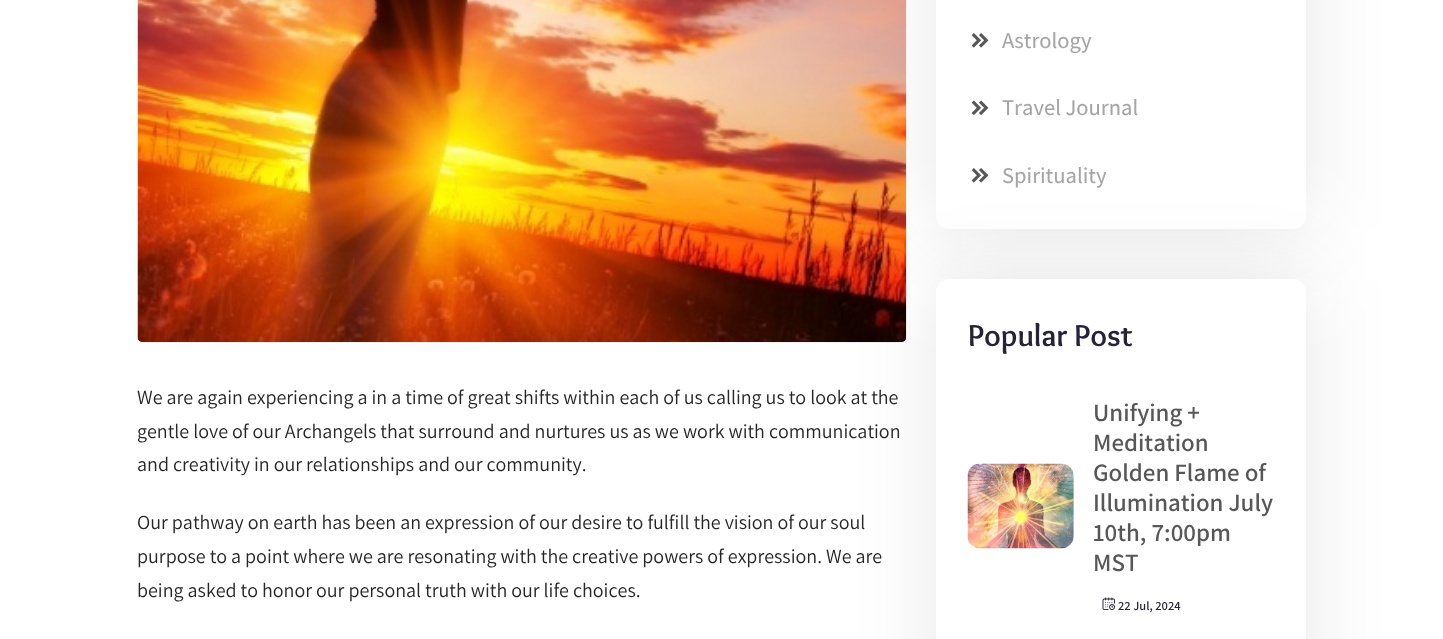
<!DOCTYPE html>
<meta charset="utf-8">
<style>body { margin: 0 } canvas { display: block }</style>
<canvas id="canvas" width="1443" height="639"></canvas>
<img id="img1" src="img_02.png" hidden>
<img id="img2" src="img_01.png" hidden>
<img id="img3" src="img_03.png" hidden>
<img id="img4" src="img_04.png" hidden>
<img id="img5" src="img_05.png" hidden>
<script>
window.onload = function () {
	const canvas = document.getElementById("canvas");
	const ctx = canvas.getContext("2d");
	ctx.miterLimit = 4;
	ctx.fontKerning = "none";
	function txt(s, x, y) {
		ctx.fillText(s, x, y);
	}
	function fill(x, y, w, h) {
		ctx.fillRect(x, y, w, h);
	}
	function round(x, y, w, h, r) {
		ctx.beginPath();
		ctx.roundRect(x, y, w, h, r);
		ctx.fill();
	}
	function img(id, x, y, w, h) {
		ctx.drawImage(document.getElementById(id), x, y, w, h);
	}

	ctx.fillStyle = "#FFFFFF";
	fill(0, 0, 1443, 639);
	ctx.fillStyle = "rgba(17, 17, 17, 0.1)";
	ctx.filter = "blur(40px)";
	ctx.beginPath();
	ctx.roundRect(936, -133, 370, 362, 13);
	ctx.fill();
	ctx.filter = "none";
	ctx.fillStyle = "#FFFFFF";
	round(936, -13, 370, 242, 13);
	img("img1", 971, 168, 18, 15);
	ctx.fillStyle = "rgba(17, 17, 17, 0.1)";
	ctx.filter = "blur(40px)";
	ctx.beginPath();
	ctx.roundRect(936, 279, 370, 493, 13);
	ctx.fill();
	ctx.filter = "none";
	img("img2", 137, 0, 770, 343);
	img("img1", 971, 33, 18, 15);
	img("img3", 971, 100, 18, 15);
	ctx.fillStyle = "#FFFFFF";
	round(936, 279, 370, 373, 13);
	img("img4", 967, 463, 107, 86);
	img("img5", 1102, 597, 13, 13);
	ctx.font = "20px Assistant";
	ctx.fillStyle = "#262626";
	txt("We are again experiencing a in a time of great shifts within each of us calling us to look at the", 137, 404);
	txt("gentle love of our Archangels that surround and nurtures us as we work with communication", 137, 438);
	txt("and creativity in our relationships and our community.", 137, 471);
	txt("Our pathway on earth has been an expression of our desire to fulfill the vision of our soul", 137, 529);
	txt("purpose to a point where we are resonating with the creative powers of expression. We are", 137, 563);
	txt("being asked to honor our personal truth with our life choices.", 137, 597);
	ctx.font = "500 22.5px Assistant";
	ctx.fillStyle = "#A5A5A5";
	txt("Astrology", 1002, 48);
	txt("Travel Journal", 1002, 115);
	txt("Spirituality", 1002, 183);
	ctx.font = "bold 31.25px Overlock";
	ctx.fillStyle = "#262339";
	txt("Popular Post", 968, 346);
	ctx.font = "600 25px Assistant";
	ctx.fillStyle = "#575757";
	txt("Unifying +", 1093, 421);
	txt("Meditation", 1093, 451);
	txt("Golden Flame of", 1093, 481);
	txt("Illumination July", 1093, 511);
	txt("10th, 7:00pm", 1093, 541);
	txt("MST", 1093, 571);
	ctx.font = "600 12.5px Assistant";
	ctx.fillStyle = "#262339";
	txt("22 Jul, 2024", 1118, 610);
};
</script>
